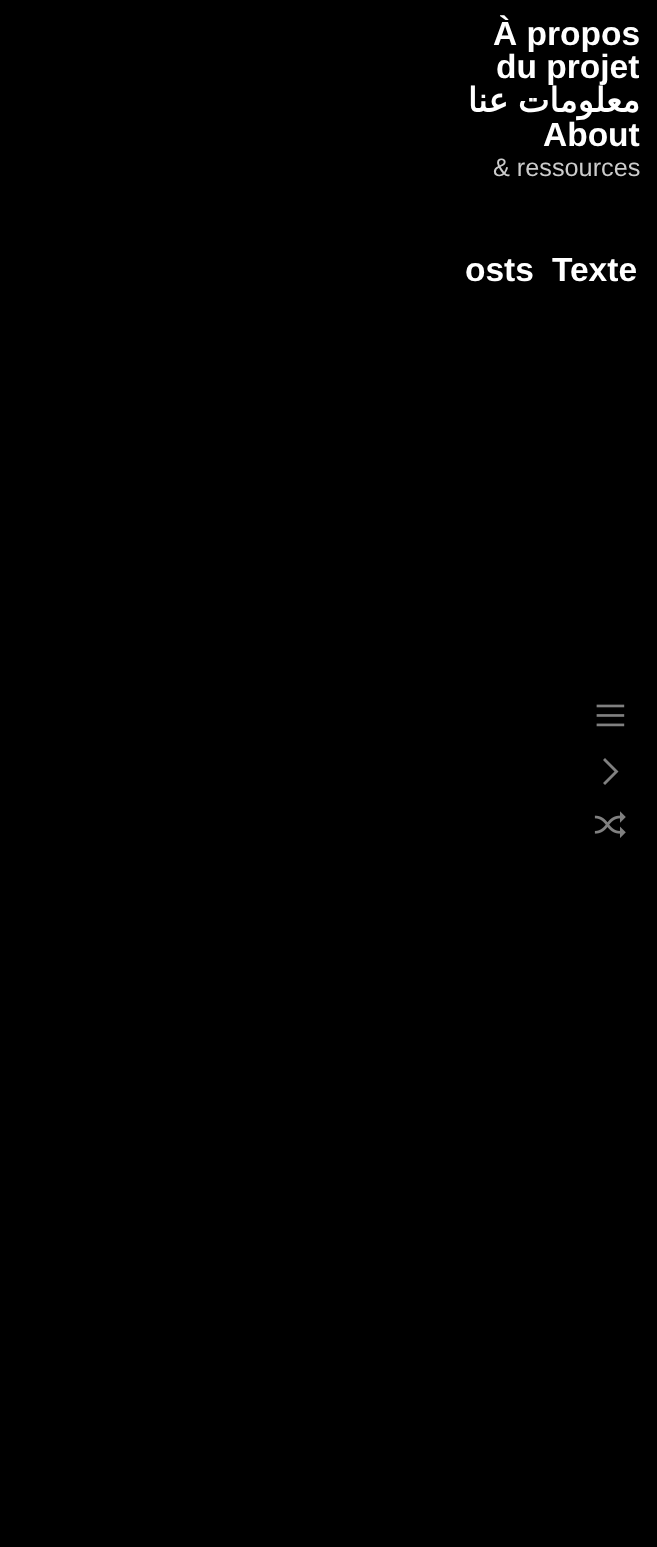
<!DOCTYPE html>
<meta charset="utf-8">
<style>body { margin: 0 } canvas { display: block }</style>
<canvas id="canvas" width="657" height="1547"></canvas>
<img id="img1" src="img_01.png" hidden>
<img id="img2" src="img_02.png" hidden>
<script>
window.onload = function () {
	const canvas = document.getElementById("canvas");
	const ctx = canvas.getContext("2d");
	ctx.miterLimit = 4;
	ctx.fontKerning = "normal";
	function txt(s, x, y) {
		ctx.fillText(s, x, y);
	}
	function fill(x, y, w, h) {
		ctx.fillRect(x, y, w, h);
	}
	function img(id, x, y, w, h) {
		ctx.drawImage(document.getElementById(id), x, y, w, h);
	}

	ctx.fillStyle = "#000000";
	fill(0, 0, 657, 1547);
	img("img1", 596, 704, 29, 23);
	ctx.fillStyle = "#808080";
	ctx.beginPath();
	ctx.moveTo(618.5, 771.5);
	ctx.lineTo(605, 758);
	ctx.lineTo(603, 760);
	ctx.lineTo(614.5, 771.5);
	ctx.lineTo(603, 783);
	ctx.lineTo(605, 785);
	ctx.closePath();
	ctx.fill();
	img("img2", 594, 811, 32, 27);
	ctx.font = "bold 33.5px Liberation Sans";
	ctx.fillStyle = "#FFFFFF";
	txt("À propos", 493, 45);
	txt("du projet", 496, 78);
	ctx.wordSpacing = "-1px";
	ctx.direction = "rtl";
	ctx.font = "bold 33.5px DejaVu Sans";
	txt("معلومات عنا", 640, 112);
	ctx.wordSpacing = "0px";
	ctx.direction = "ltr";
	ctx.font = "bold 33.5px Liberation Sans";
	txt("About", 543, 146);
	ctx.font = "25.25px Liberation Sans";
	ctx.fillStyle = "#CCCCCC";
	txt("& ressources", 493, 176);
	ctx.font = "bold 33.5px Liberation Sans";
	ctx.fillStyle = "#FFFFFF";
	txt("osts", 465, 281);
	txt("Texte", 552, 281);
};
</script>
